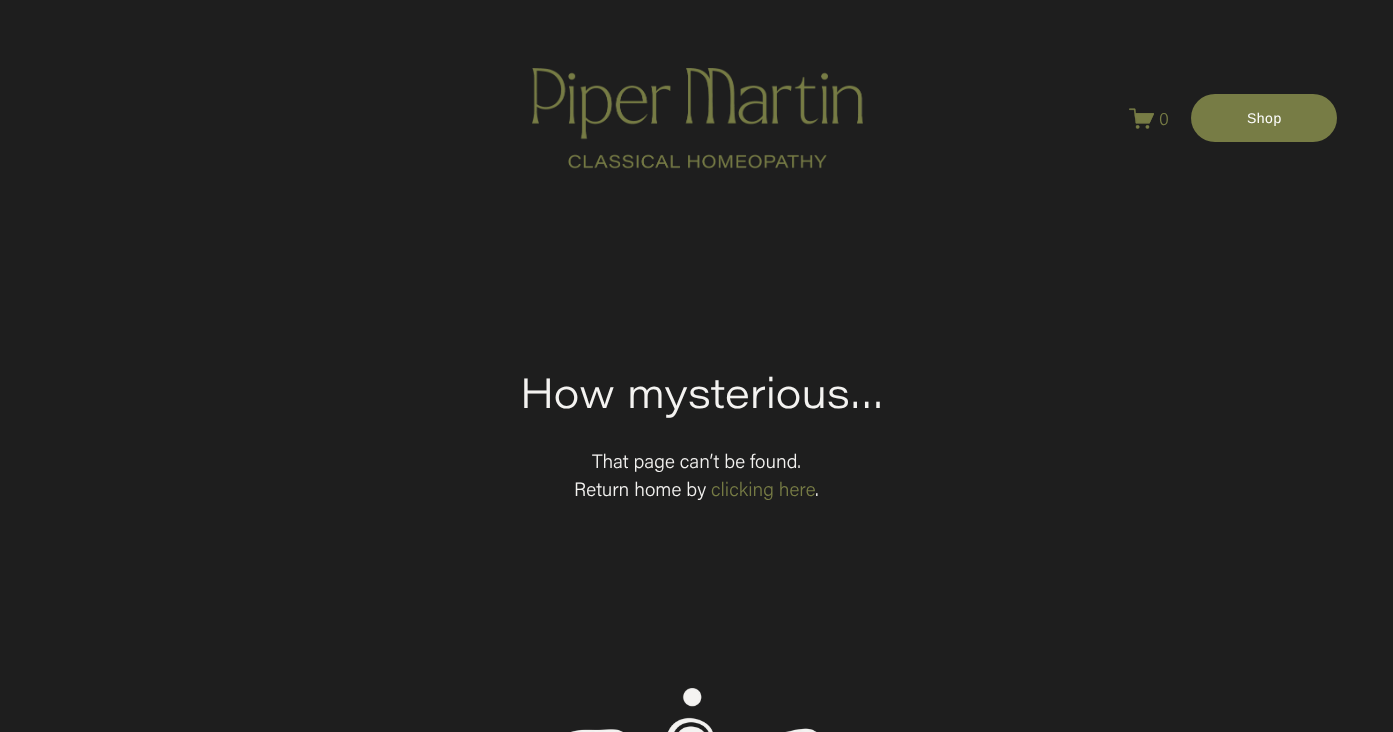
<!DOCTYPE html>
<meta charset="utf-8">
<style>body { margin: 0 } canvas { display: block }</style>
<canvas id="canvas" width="1393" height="732"></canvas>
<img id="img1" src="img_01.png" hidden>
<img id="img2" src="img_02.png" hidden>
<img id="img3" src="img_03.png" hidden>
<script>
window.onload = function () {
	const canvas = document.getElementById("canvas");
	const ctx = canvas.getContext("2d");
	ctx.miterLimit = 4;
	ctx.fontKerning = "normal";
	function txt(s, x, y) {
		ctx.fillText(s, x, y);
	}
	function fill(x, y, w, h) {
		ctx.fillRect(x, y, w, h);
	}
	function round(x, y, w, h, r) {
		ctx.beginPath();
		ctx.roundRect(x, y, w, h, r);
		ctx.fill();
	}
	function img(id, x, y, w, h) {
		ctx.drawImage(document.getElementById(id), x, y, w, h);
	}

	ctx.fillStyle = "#1E1E1E";
	fill(0, 0, 1393, 732);
	img("img1", 532, 68, 331, 101);
	img("img2", 1129, 108, 25, 21);
	ctx.fillStyle = "#777C45";
	round(1191, 94, 146, 48, 24);
	img("img3", 571, 688, 246, 44);
	ctx.font = "300 18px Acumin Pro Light";
	txt("0", 1159, 125);
	ctx.letterSpacing = "0.5px";
	ctx.font = "14px Liberation Sans";
	ctx.fillStyle = "#FFFFFF";
	txt("Shop", 1247, 123);
	ctx.letterSpacing = "0px";
	ctx.font = "300 41.5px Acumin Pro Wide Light";
	ctx.fillStyle = "#F4F3F1";
	txt("How mysterious…", 520, 408);
	ctx.font = "300 19.25px Acumin Pro Light";
	txt("That page can’t be found.", 592, 468);
	txt("Return home by", 574, 496);
	ctx.fillStyle = "#777C45";
	txt("clicking here", 711, 496);
	ctx.fillStyle = "#F4F3F1";
	txt(".", 815, 496);
};
</script>
